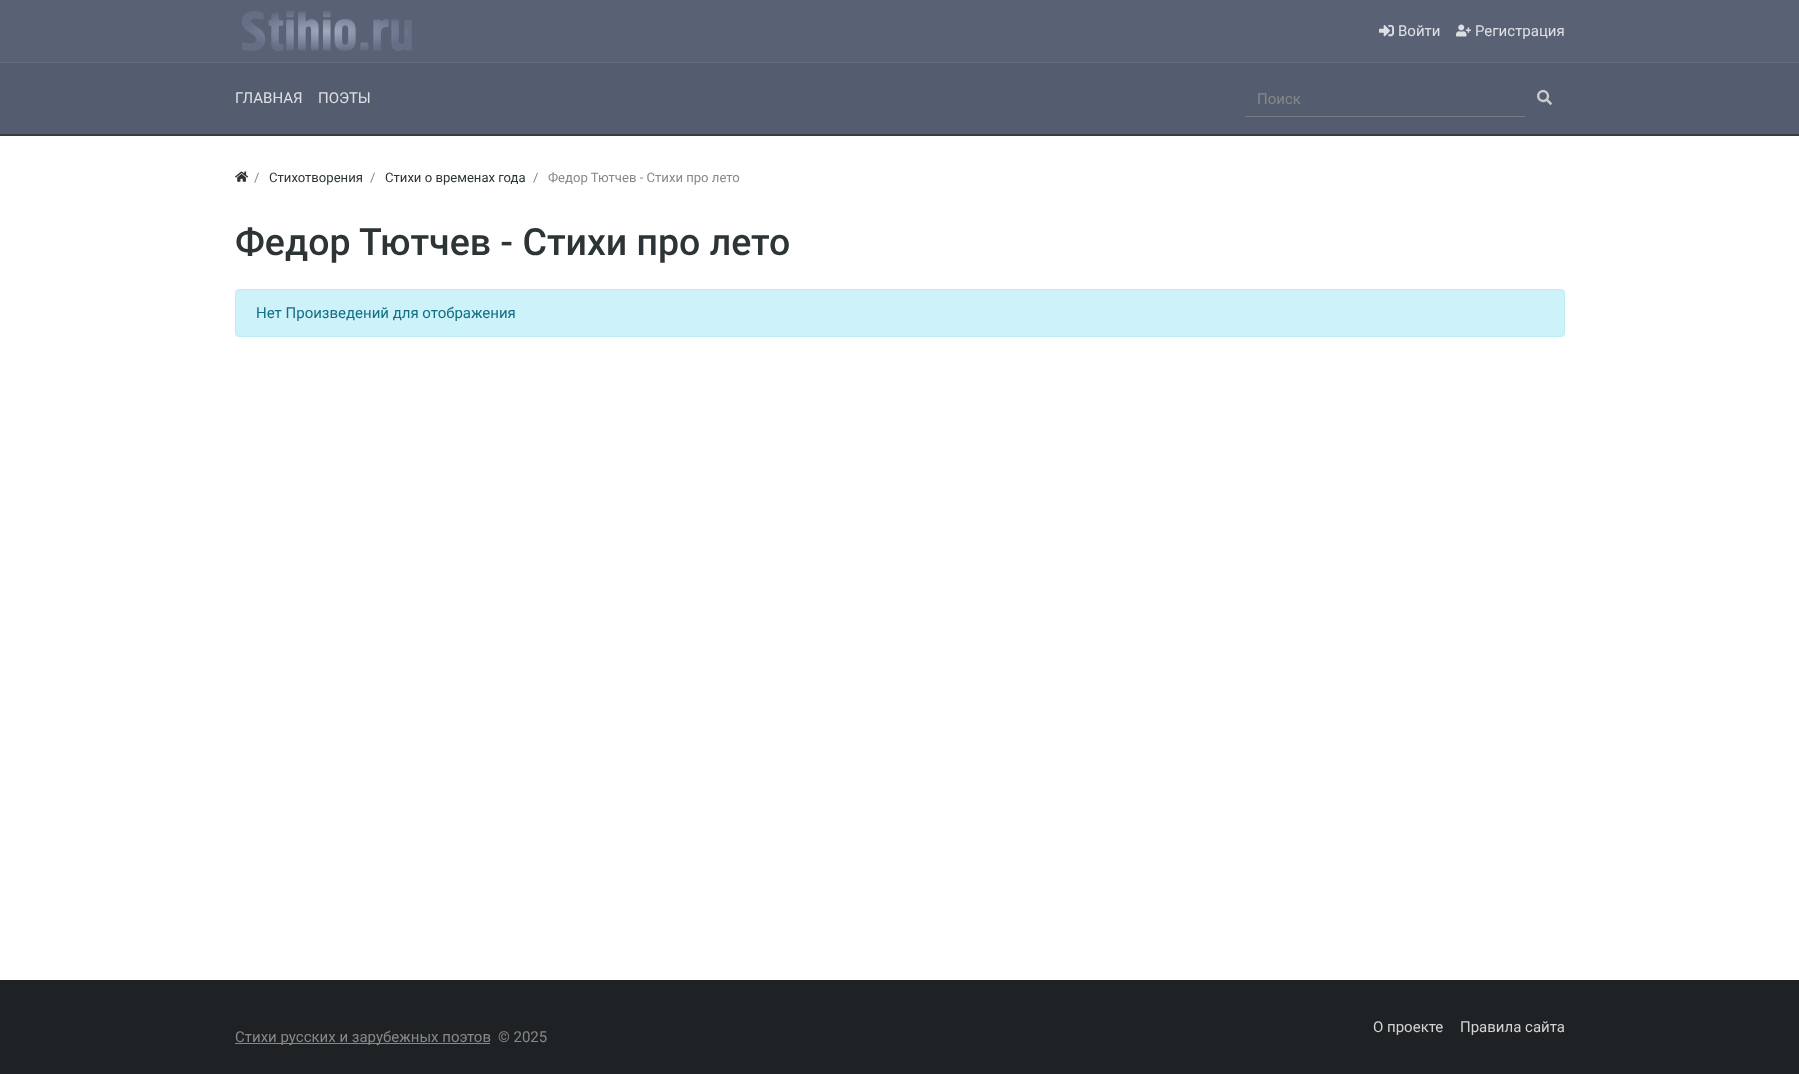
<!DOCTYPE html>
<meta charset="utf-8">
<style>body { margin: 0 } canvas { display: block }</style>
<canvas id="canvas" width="1799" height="1074"></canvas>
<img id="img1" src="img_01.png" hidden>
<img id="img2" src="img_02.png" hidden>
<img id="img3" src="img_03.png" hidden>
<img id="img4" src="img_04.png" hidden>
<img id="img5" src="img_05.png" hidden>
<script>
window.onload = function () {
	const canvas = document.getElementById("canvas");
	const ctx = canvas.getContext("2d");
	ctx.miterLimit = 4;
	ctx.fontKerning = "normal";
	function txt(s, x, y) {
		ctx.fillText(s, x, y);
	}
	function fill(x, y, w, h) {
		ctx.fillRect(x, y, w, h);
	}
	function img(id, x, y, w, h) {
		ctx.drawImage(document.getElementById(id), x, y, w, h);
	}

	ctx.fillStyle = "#FFFFFF";
	fill(0, 0, 1799, 1074);
	ctx.fillStyle = "#596275";
	fill(0, 0, 1799, 62);
	ctx.fillStyle = "#636E85";
	fill(0, 62, 1799, 1);
	img("img1", 242, 11, 170, 40);
	img("img2", 1379, 25, 15, 12);
	img("img3", 1456, 24, 15, 13);
	ctx.fillStyle = "#545D6F";
	fill(0, 63, 1799, 71);
	ctx.fillStyle = "#363B44";
	fill(0, 134, 1799, 2);
	ctx.fillStyle = "#797B80";
	fill(1245, 116, 280, 1);
	img("img4", 1537, 90, 15, 15);
	img("img5", 235, 171, 13, 11);
	ctx.fillStyle = "#CEF2F9";
	ctx.beginPath();
	ctx.roundRect(235.5, 289.5, 1329, 47, 3.5);
	ctx.fill();
	ctx.strokeStyle = "#BAEDF7";
	ctx.stroke();
	ctx.fillStyle = "#1E2224";
	fill(0, 980, 1799, 94);
	ctx.fillStyle = "#888888";
	fill(235, 1043, 255, 1);
	ctx.font = "15px Roboto";
	ctx.fillStyle = "#DEE0E3";
	txt("Войти", 1398, 36);
	txt("Регистрация", 1475, 36);
	txt("ГЛАВНАЯ", 235, 103);
	txt("ПОЭТЫ", 318, 103);
	ctx.fillStyle = "#888888";
	txt("Поиск", 1257, 104);
	ctx.font = "13.1px Roboto";
	txt("/", 254, 182);
	ctx.fillStyle = "#2D3436";
	txt("Стихотворения", 269, 182);
	ctx.fillStyle = "#888888";
	txt("/", 370, 182);
	ctx.fillStyle = "#2D3436";
	txt("Стихи о временах года", 385, 182);
	ctx.fillStyle = "#888888";
	txt("/", 533, 182);
	txt("Федор Тютчев - Стихи про лето", 548, 182);
	ctx.font = "500 37.5px Roboto";
	ctx.fillStyle = "#2D3436";
	txt("Федор Тютчев - Стихи про лето", 235, 255);
	ctx.font = "15px Roboto";
	ctx.fillStyle = "#126F83";
	txt("Нет Произведений для отображения", 256, 318);
	ctx.fillStyle = "#D2D3D3";
	txt("О проекте", 1373, 1032);
	txt("Правила сайта", 1460, 1032);
	ctx.fillStyle = "#888888";
	txt("Стихи русских и зарубежных поэтов", 235, 1042);
	txt("© 2025", 498, 1042);
};
</script>
